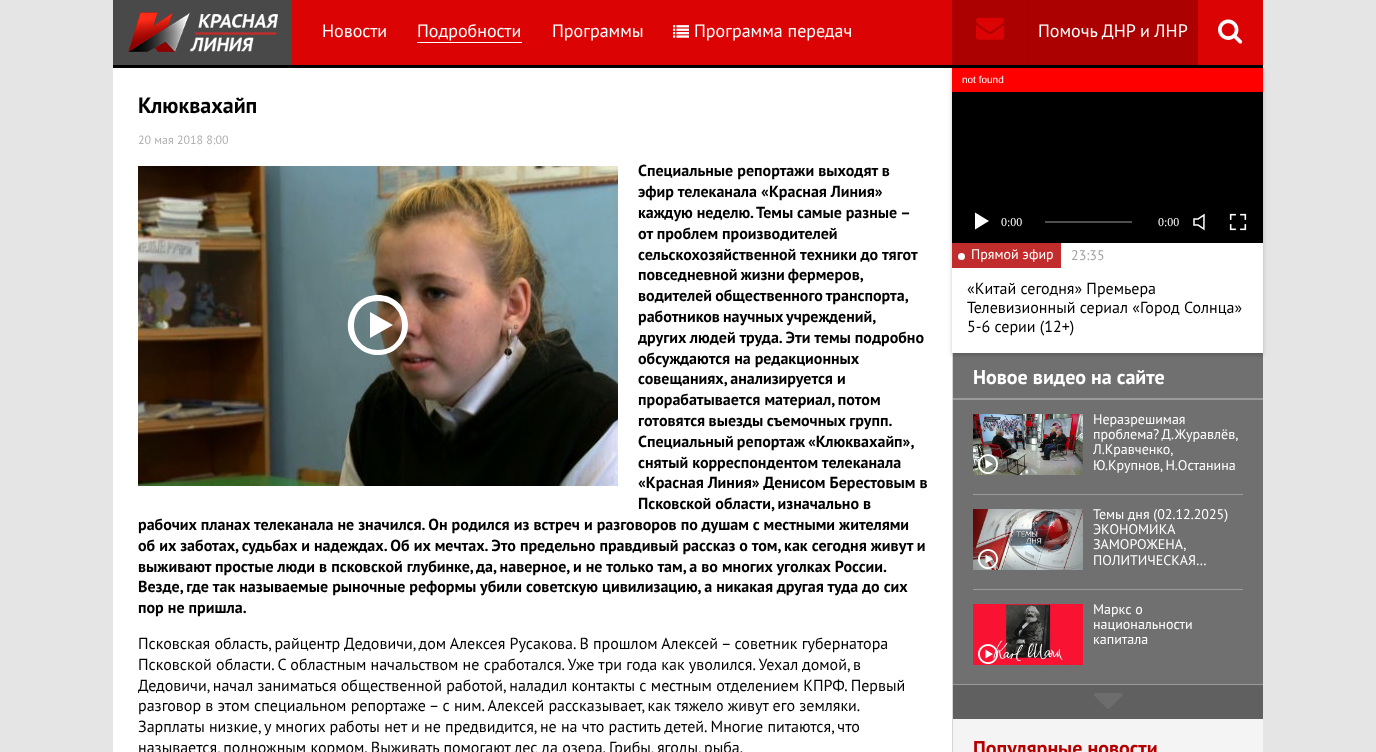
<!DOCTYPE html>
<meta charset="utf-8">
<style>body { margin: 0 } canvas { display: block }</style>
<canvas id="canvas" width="1376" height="752"></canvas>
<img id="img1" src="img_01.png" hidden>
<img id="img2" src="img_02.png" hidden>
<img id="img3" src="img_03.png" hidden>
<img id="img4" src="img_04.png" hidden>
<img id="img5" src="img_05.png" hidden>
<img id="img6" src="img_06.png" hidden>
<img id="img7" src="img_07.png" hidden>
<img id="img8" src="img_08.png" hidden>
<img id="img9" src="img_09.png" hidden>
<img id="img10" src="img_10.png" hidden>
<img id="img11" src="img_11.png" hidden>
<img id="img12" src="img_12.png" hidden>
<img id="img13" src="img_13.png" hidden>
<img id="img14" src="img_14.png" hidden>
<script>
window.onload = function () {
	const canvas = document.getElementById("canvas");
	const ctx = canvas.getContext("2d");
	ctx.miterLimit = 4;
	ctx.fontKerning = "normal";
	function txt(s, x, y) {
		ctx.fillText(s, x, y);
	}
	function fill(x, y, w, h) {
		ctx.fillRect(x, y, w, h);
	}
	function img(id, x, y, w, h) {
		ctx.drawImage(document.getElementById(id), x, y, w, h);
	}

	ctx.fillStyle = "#E5E5E5";
	fill(0, 0, 1376, 752);
	ctx.fillStyle = "#FFFFFF";
	fill(113, 68, 839, 684);
	ctx.fillStyle = "#000000";
	fill(113, 65, 1150, 3);
	ctx.fillStyle = "#707070";
	fill(953, 353, 310, 331);
	ctx.fillStyle = "#D6D5D5";
	fill(952, 353, 1, 399);
	ctx.fillStyle = "rgba(0, 0, 0, 0.2)";
	ctx.filter = "blur(2px)";
	ctx.beginPath();
	ctx.rect(952, 70, 311, 285);
	ctx.fill();
	ctx.filter = "none";
	ctx.fillStyle = "#DB0303";
	fill(292, 0, 971, 65);
	ctx.fillStyle = "#494949";
	fill(113, 0, 179, 65);
	img("img1", 128, 12, 150, 40);
	ctx.fillStyle = "#FFFFFF";
	fill(417, 42, 105, 1);
	img("img2", 673, 25, 16, 13);
	ctx.fillStyle = "#AB0101";
	fill(952, 0, 245, 65);
	ctx.fillStyle = "#940000";
	fill(1197, 0, 1, 65);
	img("img3", 976, 17, 28, 23);
	fill(1027, 0, 1, 65);
	img("img4", 1218, 19, 25, 25);
	img("img5", 138, 166, 480, 320);
	ctx.fillStyle = "#FFFFFF";
	ctx.beginPath();
	ctx.moveTo(378, 295);
	ctx.bezierCurveTo(349, 295, 337, 332, 360, 349);
	ctx.bezierCurveTo(365, 353, 372, 355, 378, 355);
	ctx.bezierCurveTo(384, 355, 391, 353, 396, 349);
	ctx.bezierCurveTo(419, 332, 407, 295, 378, 295);
	ctx.closePath();
	ctx.moveTo(378, 350);
	ctx.bezierCurveTo(346, 350, 346, 301, 378, 301);
	ctx.bezierCurveTo(410, 301, 410, 350, 378, 350);
	ctx.closePath();
	ctx.moveTo(370, 312);
	ctx.lineTo(393, 325);
	ctx.lineTo(370, 338);
	ctx.closePath();
	ctx.fill();
	fill(952, 243, 311, 110);
	ctx.fillStyle = "#000000";
	fill(952, 92, 311, 151);
	ctx.fillStyle = "#FF0000";
	fill(952, 68, 311, 24);
	ctx.fillStyle = "#FFFFFF";
	ctx.beginPath();
	ctx.moveTo(975, 212.5);
	ctx.lineTo(975, 229.5);
	ctx.lineTo(989, 221);
	ctx.closePath();
	ctx.fill();
	ctx.fillStyle = "#4D4D4D";
	fill(1045, 221, 87, 2);
	img("img6", 1193, 213, 12, 18);
	img("img7", 1229, 213, 18, 18);
	ctx.fillStyle = "#C12C2C";
	fill(952, 243, 109, 25);
	ctx.fillStyle = "#FFFFFF";
	ctx.beginPath();
	ctx.arc(961.5, 256.5, 3.5, 0, Math.PI * 2);
	ctx.fill();
	ctx.fillStyle = "#9B9999";
	fill(953, 398, 310, 2);
	fill(973, 494, 270, 1);
	img("img8", 973, 414, 110, 61);
	img("img9", 978, 454, 20, 21);
	fill(973, 589, 270, 1);
	img("img10", 973, 509, 110, 61);
	img("img11", 978, 549, 20, 20);
	img("img12", 973, 604, 110, 61);
	img("img13", 978, 644, 20, 21);
	ctx.fillStyle = "#606060";
	fill(953, 685, 310, 34);
	ctx.fillStyle = "#9B9999";
	fill(953, 684, 310, 1);
	img("img14", 1094, 693, 29, 16);
	ctx.fillStyle = "#F4F4F4";
	fill(953, 719, 310, 33);
	ctx.font = "18px PT Sans";
	ctx.fillStyle = "#FFFFFF";
	txt("Новости", 322, 37);
	txt("Подробности", 417, 37);
	txt("Программы", 552, 37);
	txt("Программа передач", 694, 37);
	txt("Помочь ДНР и ЛНР", 1038, 37);
	ctx.font = "bold 22px PT Sans";
	ctx.fillStyle = "#000000";
	txt("Клюквахайп", 138, 113);
	ctx.font = "12px PT Sans";
	ctx.fillStyle = "#B0B0B0";
	txt("20 мая 2018 8:00", 138, 144);
	ctx.font = "bold 16px PT Sans";
	ctx.fillStyle = "#000000";
	txt("Специальные репортажи выходят в", 638, 176);
	txt("эфир телеканала «Красная Линия»", 638, 197);
	ctx.wordSpacing = "-0.25px";
	txt("каждую неделю. Темы самые разные –", 638, 218);
	ctx.wordSpacing = "0px";
	txt("от проблем производителей", 638, 239);
	txt("сельскохозяйственной техники до тягот", 638, 260);
	ctx.wordSpacing = "-1px";
	txt("повседневной жизни фермеров,", 638, 280);
	txt("водителей общественного транспорта,", 638, 301);
	txt("работников научных учреждений,", 638, 322);
	ctx.wordSpacing = "0px";
	txt("других людей труда. Эти темы подробно", 638, 343);
	txt("обсуждаются на редакционных", 638, 364);
	txt("совещаниях, анализируется и", 638, 384);
	txt("прорабатывается материал, потом", 638, 405);
	ctx.wordSpacing = "-0.5px";
	txt("готовятся выезды съемочных групп.", 638, 426);
	ctx.wordSpacing = "-1px";
	txt("Специальный репортаж «Клюквахайп»,", 638, 447);
	ctx.wordSpacing = "0px";
	txt("снятый корреспондентом телеканала", 638, 468);
	txt("«Красная Линия» Денисом Берестовым в", 638, 488);
	txt("Псковской области, изначально в", 638, 509);
	txt("рабочих планах телеканала не значился. Он родился из встреч и разговоров по душам с местными жителями", 138, 530);
	txt("об их заботах, судьбах и надеждах. Об их мечтах. Это предельно правдивый рассказ о том, как сегодня живут и", 138, 551);
	txt("выживают простые люди в псковской глубинке, да, наверное, и не только там, а во многих уголках России.", 138, 572);
	txt("Везде, где так называемые рыночные реформы убили советскую цивилизацию, а никакая другая туда до сих", 138, 592);
	txt("пор не пришла.", 138, 613);
	ctx.font = "16px PT Sans";
	txt("Псковская область, райцентр Дедовичи, дом Алексея Русакова. В прошлом Алексей – советник губернатора", 138, 649);
	txt("Псковской области. С областным начальством не сработался. Уже три года как уволился. Уехал домой, в", 138, 670);
	txt("Дедовичи, начал заниматься общественной работой, наладил контакты с местным отделением КПРФ. Первый", 138, 691);
	txt("разговор в этом специальном репортаже – с ним. Алексей рассказывает, как тяжело живут его земляки.", 138, 711);
	txt("Зарплаты низкие, у многих работы нет и не предвидится, не на что растить детей. Многие питаются, что", 138, 732);
	txt("называется, подножным кормом. Выживать помогают лес да озера. Грибы, ягоды, рыба.", 138, 753);
	ctx.font = "10px Liberation Sans";
	ctx.fillStyle = "#FFFFFF";
	txt("not found", 962, 83);
	ctx.font = "12px Liberation Serif";
	txt("0:00", 1001, 226);
	txt("0:00", 1158, 226);
	ctx.font = "14px PT Sans";
	txt("Прямой эфир", 971, 259);
	ctx.fillStyle = "#A3A3A3";
	txt("23:35", 1071, 260);
	ctx.font = "16px PT Sans";
	ctx.fillStyle = "#000000";
	txt("«Китай сегодня» Премьера", 967, 294);
	txt("Телевизионный сериал «Город Солнца»", 967, 313);
	txt("5-6 серии (12+)", 967, 332);
	ctx.font = "bold 20px PT Sans";
	ctx.fillStyle = "#FFFFFF";
	txt("Новое видео на сайте", 973, 384);
	ctx.font = "14px PT Sans";
	txt("Неразрешимая", 1093, 424);
	ctx.wordSpacing = "-1px";
	txt("проблема? Д.Журавлёв,", 1093, 439);
	ctx.wordSpacing = "0px";
	txt("Л.Кравченко,", 1093, 454);
	txt("Ю.Крупнов, Н.Останина", 1093, 470);
	txt("Темы дня (02.12.2025)", 1093, 519);
	txt("ЭКОНОМИКА", 1093, 534);
	txt("ЗАМОРОЖЕНА,", 1093, 549);
	txt("ПОЛИТИЧЕСКАЯ…", 1093, 565);
	txt("Маркс о", 1093, 614);
	txt("национальности", 1093, 629);
	txt("капитала", 1093, 644);
	ctx.font = "bold 20px PT Sans";
	ctx.fillStyle = "#B60000";
	txt("Популярные новости", 973, 755);
};
</script>
